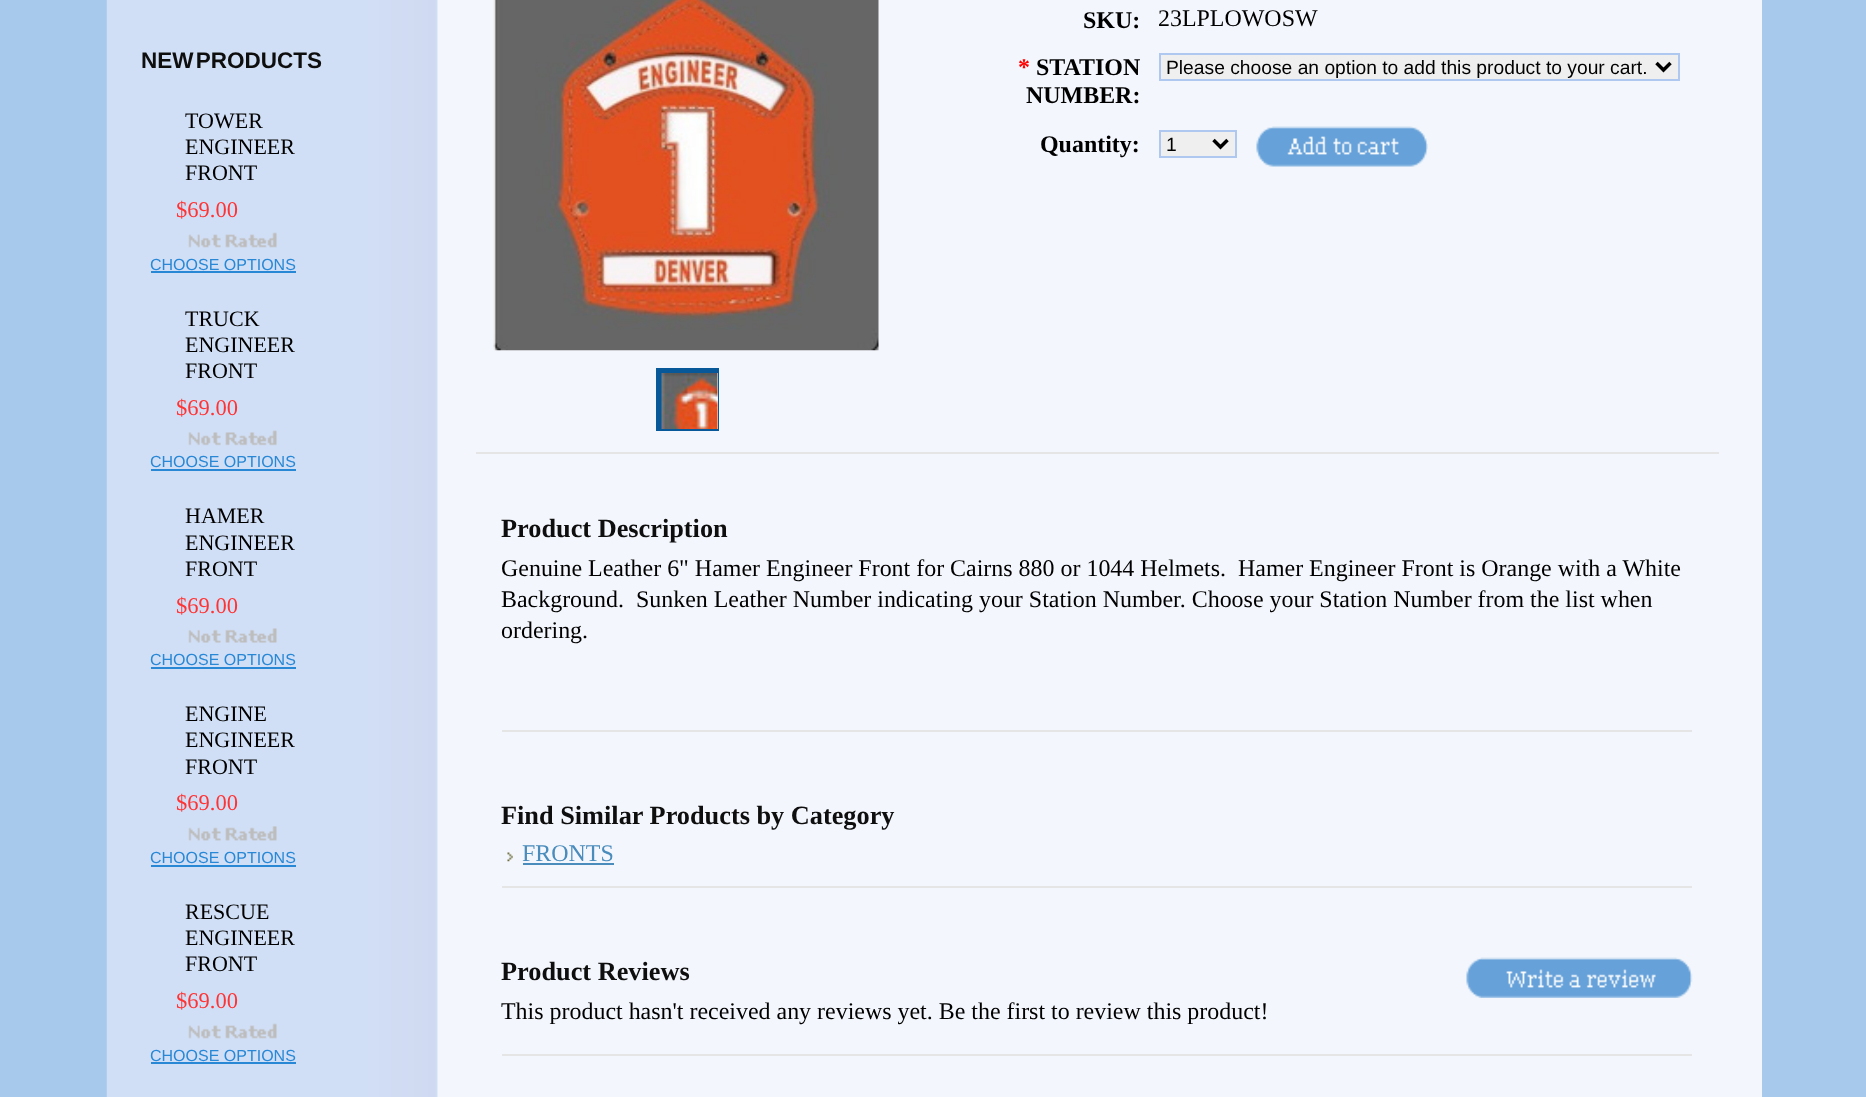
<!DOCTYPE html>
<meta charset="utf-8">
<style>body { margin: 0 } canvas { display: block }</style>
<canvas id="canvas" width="1866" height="1097"></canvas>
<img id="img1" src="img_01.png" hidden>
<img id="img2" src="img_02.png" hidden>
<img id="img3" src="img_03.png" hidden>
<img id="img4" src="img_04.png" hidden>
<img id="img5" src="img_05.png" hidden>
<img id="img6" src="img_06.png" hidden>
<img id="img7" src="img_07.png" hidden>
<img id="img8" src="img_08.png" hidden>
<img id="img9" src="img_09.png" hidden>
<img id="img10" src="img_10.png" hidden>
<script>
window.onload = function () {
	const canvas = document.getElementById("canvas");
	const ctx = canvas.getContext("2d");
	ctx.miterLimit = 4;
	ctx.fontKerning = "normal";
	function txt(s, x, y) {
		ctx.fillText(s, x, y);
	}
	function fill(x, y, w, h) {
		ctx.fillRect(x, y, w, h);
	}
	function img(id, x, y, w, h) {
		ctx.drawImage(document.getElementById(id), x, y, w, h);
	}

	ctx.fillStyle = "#A7C9EB";
	fill(0, 0, 1866, 1097);
	ctx.fillStyle = "#F3F6FC";
	fill(437, 0, 1325, 1097);
	img("img1", 106, 0, 332, 1097);
	img("img2", 188, 232, 89, 16);
	ctx.fillStyle = "#2988D6";
	fill(151, 271, 145, 2);
	img("img3", 188, 430, 89, 16);
	fill(151, 469, 145, 2);
	img("img4", 188, 628, 89, 15);
	fill(151, 667, 145, 2);
	img("img5", 188, 826, 89, 15);
	fill(151, 865, 145, 2);
	img("img2", 188, 1023, 89, 16);
	fill(151, 1062, 145, 2);
	img("img6", 493, 0, 386, 351);
	ctx.strokeStyle = "#075899";
	ctx.lineWidth = 2;
	ctx.strokeRect(657, 369, 61, 61);
	ctx.fillStyle = "#FFFFFF";
	fill(717, 373, 1, 56);
	ctx.fillStyle = "#E5E5E5";
	fill(476, 452, 1243, 2);
	ctx.save();
	ctx.beginPath();
	ctx.rect(658, 369, 60, 60);
	ctx.clip();
	ctx.lineWidth = 4;
	ctx.strokeRect(660, 371, 80, 80);
	ctx.restore();
	img("img7", 661, 373, 57, 56);
	ctx.fillStyle = "#EFEFEF";
	ctx.beginPath();
	ctx.rect(1160, 54, 519, 26);
	ctx.fill();
	ctx.strokeStyle = "#AFC8EF";
	ctx.stroke();
	ctx.beginPath();
	ctx.moveTo(1656.5, 63);
	ctx.lineTo(1663.5, 70);
	ctx.lineTo(1670.5, 63);
	ctx.strokeStyle = "#000000";
	ctx.lineWidth = 3.5;
	ctx.stroke();
	ctx.beginPath();
	ctx.rect(1160, 131, 76, 26);
	ctx.fill();
	ctx.strokeStyle = "#AFC8EF";
	ctx.lineWidth = 2;
	ctx.stroke();
	ctx.beginPath();
	ctx.moveTo(1213.5, 140);
	ctx.lineTo(1220.5, 147);
	ctx.lineTo(1227.5, 140);
	ctx.strokeStyle = "#000000";
	ctx.lineWidth = 3.5;
	ctx.stroke();
	img("img8", 1256, 126, 172, 41);
	ctx.fillStyle = "#E5E5E5";
	fill(502, 730, 1190, 2);
	img("img9", 507, 852, 6, 10);
	ctx.fillStyle = "#4A8CBC";
	fill(523, 863, 91, 2);
	ctx.fillStyle = "#E5E5E5";
	fill(502, 886, 1190, 2);
	img("img10", 1466, 957, 227, 41);
	fill(502, 1054, 1190, 2);
	ctx.wordSpacing = "-4px";
	ctx.font = "bold 22.5px Liberation Sans";
	ctx.fillStyle = "#0E0E0E";
	txt("NEW PRODUCTS", 141, 68);
	ctx.wordSpacing = "0px";
	ctx.font = "22px Liberation Serif";
	ctx.fillStyle = "#000000";
	txt("TOWER", 185, 128);
	txt("ENGINEER", 185, 154);
	txt("FRONT", 185, 180);
	ctx.font = "22.5px Liberation Serif";
	ctx.fillStyle = "#FF3333";
	txt("$69.00", 176, 217);
	ctx.font = "16px Liberation Sans";
	ctx.fillStyle = "#2988D6";
	txt("CHOOSE OPTIONS", 150, 270);
	ctx.font = "22px Liberation Serif";
	ctx.fillStyle = "#000000";
	txt("TRUCK", 185, 326);
	txt("ENGINEER", 185, 352);
	txt("FRONT", 185, 378);
	ctx.font = "22.5px Liberation Serif";
	ctx.fillStyle = "#FF3333";
	txt("$69.00", 176, 415);
	ctx.font = "16px Liberation Sans";
	ctx.fillStyle = "#2988D6";
	txt("CHOOSE OPTIONS", 150, 467);
	ctx.font = "22px Liberation Serif";
	ctx.fillStyle = "#000000";
	txt("HAMER", 185, 523);
	txt("ENGINEER", 185, 550);
	txt("FRONT", 185, 576);
	ctx.font = "22.5px Liberation Serif";
	ctx.fillStyle = "#FF3333";
	txt("$69.00", 176, 613);
	ctx.font = "16px Liberation Sans";
	ctx.fillStyle = "#2988D6";
	txt("CHOOSE OPTIONS", 150, 665);
	ctx.font = "22px Liberation Serif";
	ctx.fillStyle = "#000000";
	txt("ENGINE", 185, 721);
	txt("ENGINEER", 185, 747);
	txt("FRONT", 185, 774);
	ctx.font = "22.5px Liberation Serif";
	ctx.fillStyle = "#FF3333";
	txt("$69.00", 176, 810);
	ctx.font = "16px Liberation Sans";
	ctx.fillStyle = "#2988D6";
	txt("CHOOSE OPTIONS", 150, 863);
	ctx.font = "22px Liberation Serif";
	ctx.fillStyle = "#000000";
	txt("RESCUE", 185, 919);
	txt("ENGINEER", 185, 945);
	txt("FRONT", 185, 971);
	ctx.font = "22.5px Liberation Serif";
	ctx.fillStyle = "#FF3333";
	txt("$69.00", 176, 1008);
	ctx.font = "16px Liberation Sans";
	ctx.fillStyle = "#2988D6";
	txt("CHOOSE OPTIONS", 150, 1061);
	ctx.font = "bold 23.95px Liberation Serif";
	ctx.fillStyle = "#000000";
	txt("SKU:", 1083, 28);
	ctx.font = "23.95px Liberation Serif";
	txt("23LPLOWOSW", 1158, 26);
	ctx.font = "bold 23.95px Liberation Serif";
	ctx.fillStyle = "#FF0000";
	txt("*", 1018, 75);
	ctx.fillStyle = "#000000";
	txt("STATION", 1036, 75);
	txt("NUMBER:", 1026, 103);
	ctx.font = "19.25px Liberation Sans";
	txt("Please choose an option to add this product to your cart.", 1166, 74);
	ctx.font = "bold 23.95px Liberation Serif";
	txt("Quantity:", 1040, 152);
	ctx.font = "19.25px Liberation Sans";
	txt("1", 1166, 151);
	ctx.font = "bold 26.3px Liberation Serif";
	ctx.fillStyle = "#0E0E0E";
	txt("Product Description", 501, 537);
	ctx.font = "23.95px Liberation Serif";
	ctx.fillStyle = "#000000";
	txt("Genuine Leather 6\" Hamer Engineer Front for Cairns 880 or 1044 Helmets.  Hamer Engineer Front is Orange with a White", 501, 576);
	txt("Background.  Sunken Leather Number indicating your Station Number. Choose your Station Number from the list when", 501, 607);
	txt("ordering.", 501, 638);
	ctx.font = "bold 26.3px Liberation Serif";
	ctx.fillStyle = "#0E0E0E";
	txt("Find Similar Products by Category", 501, 824);
	ctx.font = "23.95px Liberation Serif";
	ctx.fillStyle = "#4A8CBC";
	txt("FRONTS", 522, 861);
	ctx.font = "bold 26.3px Liberation Serif";
	ctx.fillStyle = "#0E0E0E";
	txt("Product Reviews", 501, 980);
	ctx.font = "23.95px Liberation Serif";
	ctx.fillStyle = "#000000";
	txt("This product hasn't received any reviews yet. Be the first to review this product!", 501, 1019);
};
</script>
